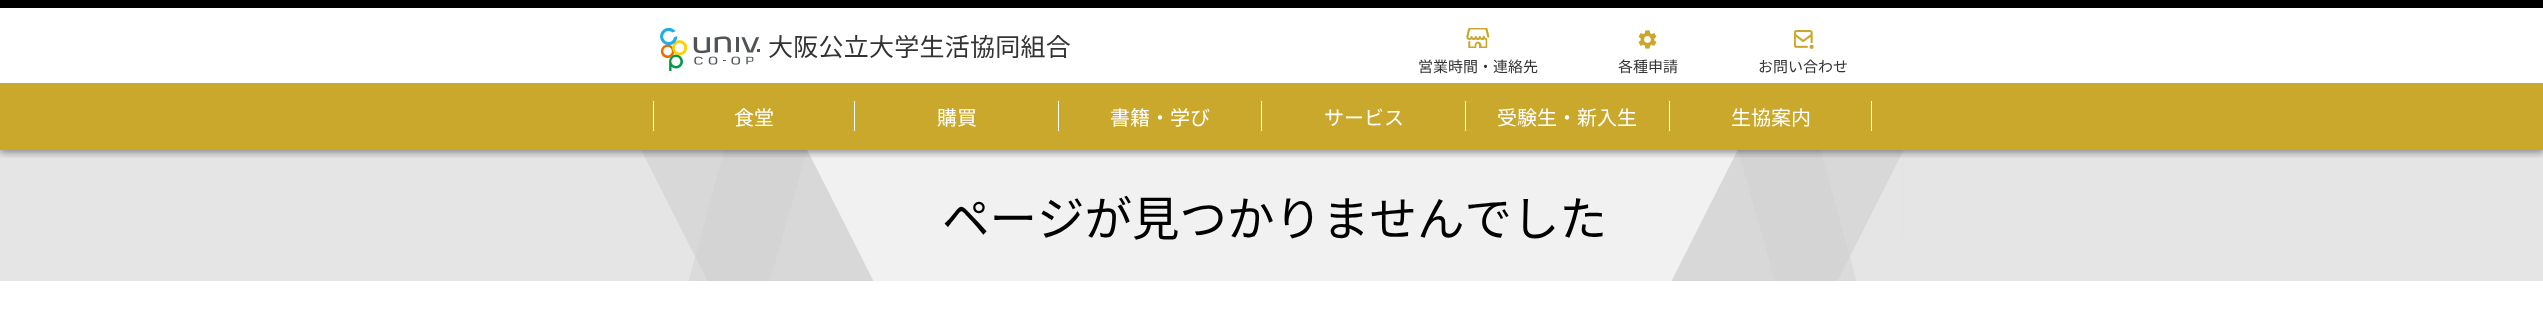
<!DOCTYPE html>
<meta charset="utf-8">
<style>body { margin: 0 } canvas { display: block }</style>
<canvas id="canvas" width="2543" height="333"></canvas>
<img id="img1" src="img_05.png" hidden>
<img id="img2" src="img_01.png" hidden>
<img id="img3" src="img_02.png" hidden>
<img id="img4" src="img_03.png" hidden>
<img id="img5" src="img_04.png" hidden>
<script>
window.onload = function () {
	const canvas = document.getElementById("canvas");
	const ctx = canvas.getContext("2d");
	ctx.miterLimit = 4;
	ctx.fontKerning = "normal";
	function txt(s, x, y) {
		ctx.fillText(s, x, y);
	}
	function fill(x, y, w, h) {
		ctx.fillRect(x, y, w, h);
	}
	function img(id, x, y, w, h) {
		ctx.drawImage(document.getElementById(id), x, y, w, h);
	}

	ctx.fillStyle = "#FFFFFF";
	fill(0, 0, 2543, 333);
	ctx.fillStyle = "#E5E5E5";
	fill(0, 150, 2543, 131);
	img("img1", 641, 150, 1263, 131);
	ctx.save();
	ctx.beginPath();
	ctx.rect(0, 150, 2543, 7);
	ctx.clip();
	ctx.fillStyle = "rgba(0, 0, 0, 0.12)";
	ctx.filter = "blur(6px)";
	ctx.beginPath();
	ctx.rect(0, 1, 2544, 150);
	ctx.fill();
	ctx.filter = "none";
	ctx.restore();
	ctx.save();
	ctx.beginPath();
	ctx.rect(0, 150, 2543, 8);
	ctx.clip();
	ctx.fillStyle = "rgba(0, 0, 0, 0.14)";
	ctx.filter = "blur(3px)";
	ctx.beginPath();
	ctx.rect(0, 5, 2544, 150);
	ctx.fill();
	ctx.filter = "none";
	ctx.restore();
	ctx.save();
	ctx.beginPath();
	ctx.rect(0, 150, 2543, 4);
	ctx.clip();
	ctx.fillStyle = "rgba(0, 0, 0, 0.2)";
	ctx.filter = "blur(2.5px)";
	ctx.beginPath();
	ctx.rect(1, 4, 2542, 147);
	ctx.fill();
	ctx.filter = "none";
	ctx.restore();
	ctx.fillStyle = "#000000";
	fill(0, 0, 2543, 8);
	img("img2", 660, 28, 100, 43);
	img("img3", 1466, 28, 24, 20);
	img("img4", 1638, 30, 19, 19);
	img("img5", 1794, 30, 20, 19);
	ctx.fillStyle = "#CAA82B";
	fill(0, 83, 2543, 67);
	ctx.fillStyle = "#FFFFFF";
	fill(854, 101, 1, 30);
	fill(653, 101, 1, 30);
	fill(1058, 101, 1, 30);
	fill(1261, 101, 1, 30);
	fill(1465, 101, 1, 30);
	fill(1669, 101, 1, 30);
	fill(1871, 101, 1, 30);
	ctx.letterSpacing = "0.25px";
	ctx.font = "25px Noto Sans JP";
	ctx.fillStyle = "#333333";
	txt("大阪公立大学生活協同組合", 768, 56);
	ctx.letterSpacing = "0px";
	ctx.font = "15px Noto Sans JP";
	txt("営業時間・連絡先", 1418, 72);
	txt("各種申請", 1618, 72);
	txt("お問い合わせ", 1758, 72);
	ctx.font = "20px Noto Sans JP";
	ctx.fillStyle = "#FFFFFF";
	txt("食堂", 734, 125);
	txt("購買", 937, 125);
	txt("書籍・学び", 1110, 125);
	txt("サービス", 1324, 125);
	txt("受験生・新入生", 1497, 125);
	txt("生協案内", 1731, 125);
	ctx.font = "47.5px Noto Sans JP";
	ctx.fillStyle = "#000000";
	txt("ページが見つかりませんでした", 942, 236);
};
</script>
